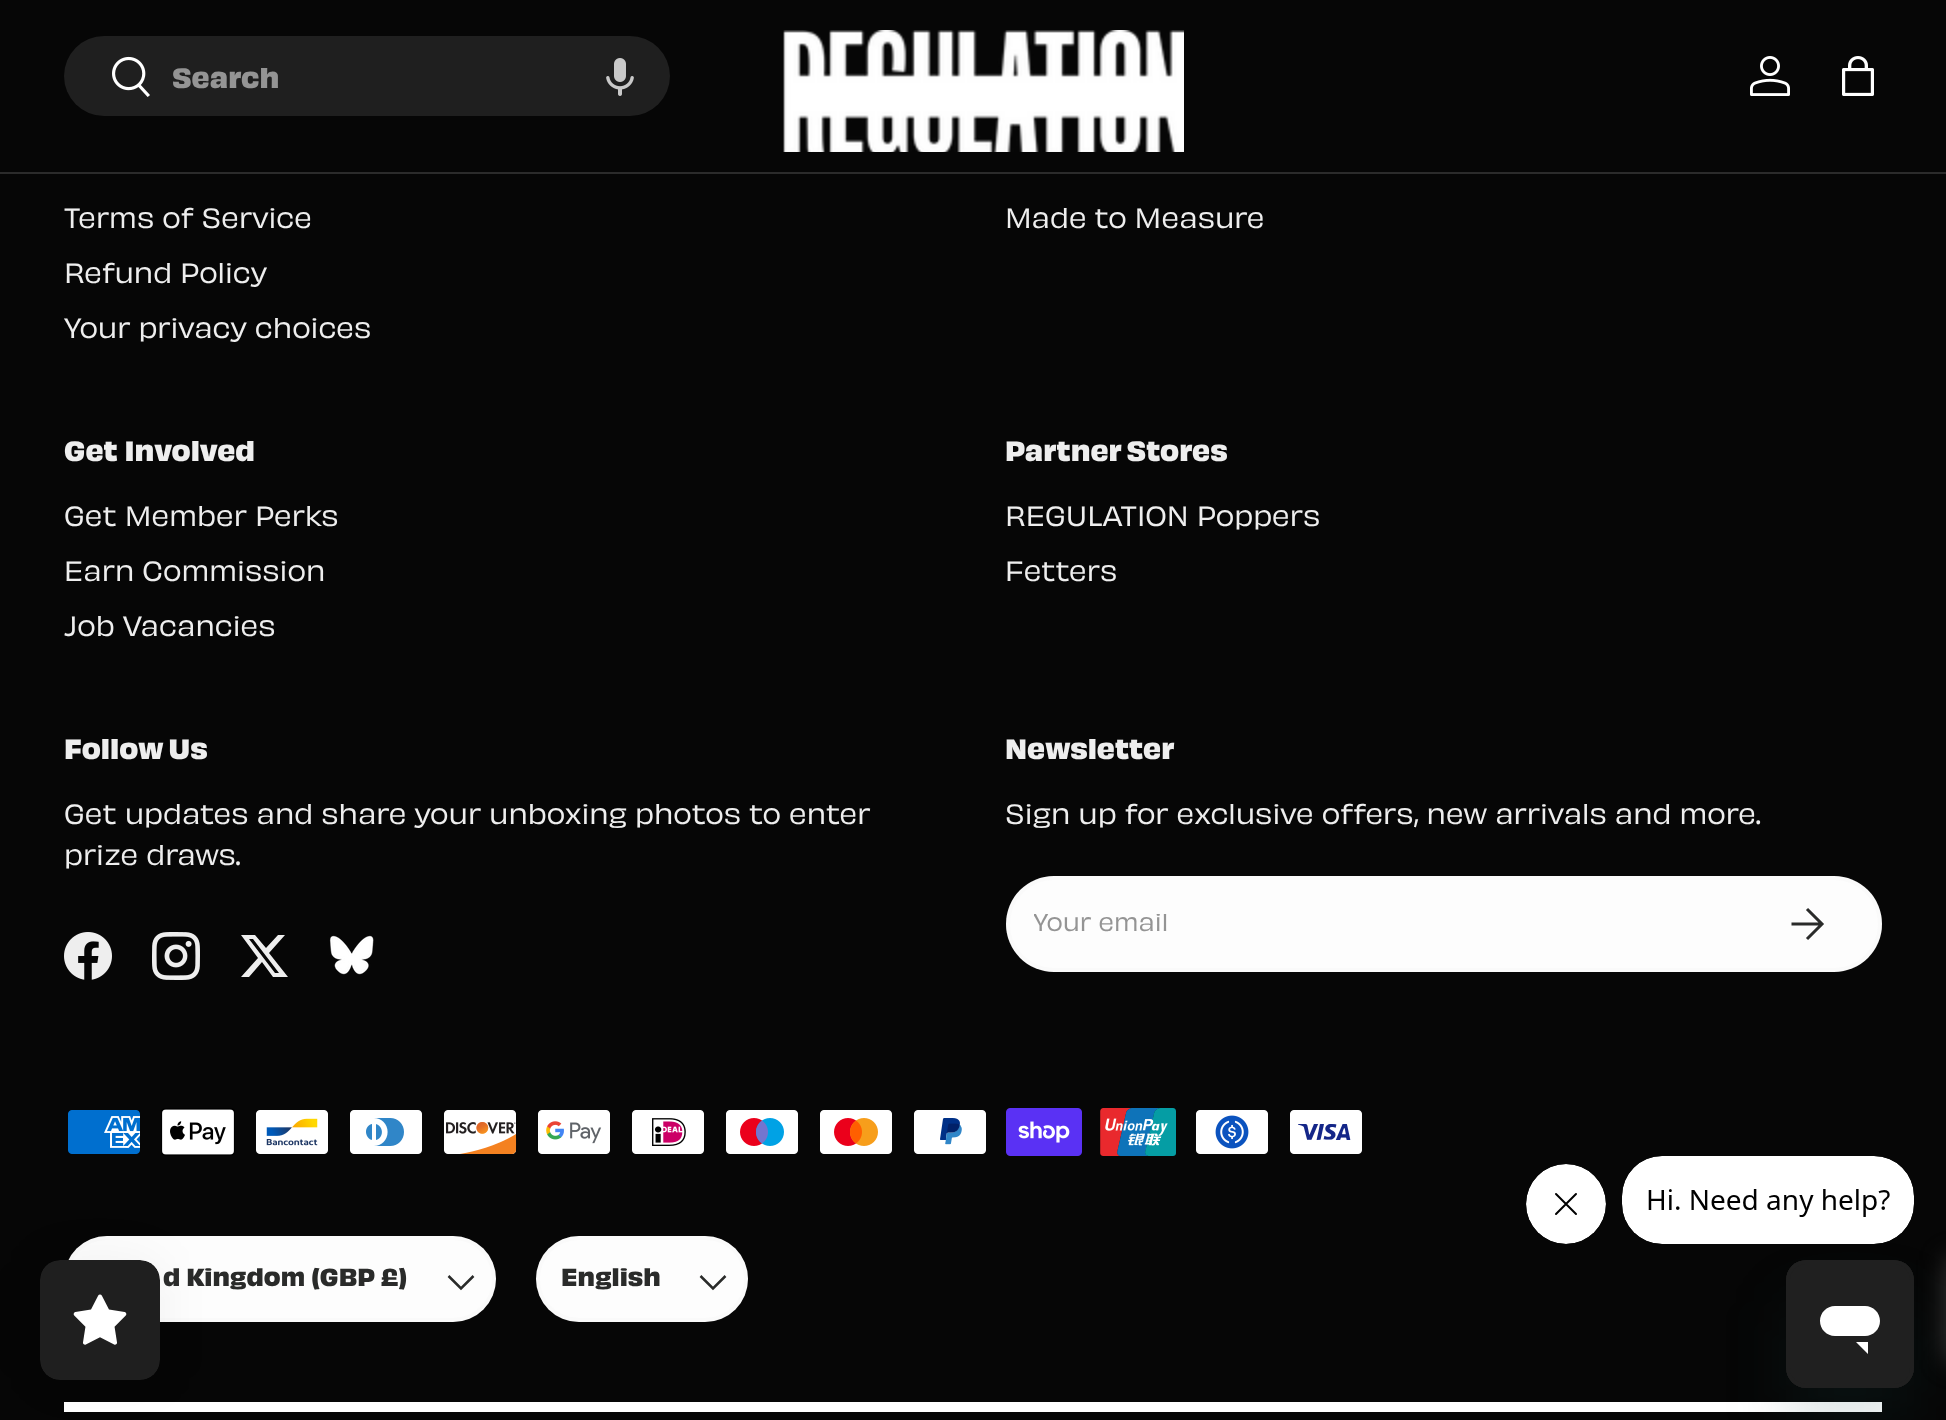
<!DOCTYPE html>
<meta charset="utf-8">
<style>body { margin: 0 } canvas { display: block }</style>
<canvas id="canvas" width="1946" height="1420"></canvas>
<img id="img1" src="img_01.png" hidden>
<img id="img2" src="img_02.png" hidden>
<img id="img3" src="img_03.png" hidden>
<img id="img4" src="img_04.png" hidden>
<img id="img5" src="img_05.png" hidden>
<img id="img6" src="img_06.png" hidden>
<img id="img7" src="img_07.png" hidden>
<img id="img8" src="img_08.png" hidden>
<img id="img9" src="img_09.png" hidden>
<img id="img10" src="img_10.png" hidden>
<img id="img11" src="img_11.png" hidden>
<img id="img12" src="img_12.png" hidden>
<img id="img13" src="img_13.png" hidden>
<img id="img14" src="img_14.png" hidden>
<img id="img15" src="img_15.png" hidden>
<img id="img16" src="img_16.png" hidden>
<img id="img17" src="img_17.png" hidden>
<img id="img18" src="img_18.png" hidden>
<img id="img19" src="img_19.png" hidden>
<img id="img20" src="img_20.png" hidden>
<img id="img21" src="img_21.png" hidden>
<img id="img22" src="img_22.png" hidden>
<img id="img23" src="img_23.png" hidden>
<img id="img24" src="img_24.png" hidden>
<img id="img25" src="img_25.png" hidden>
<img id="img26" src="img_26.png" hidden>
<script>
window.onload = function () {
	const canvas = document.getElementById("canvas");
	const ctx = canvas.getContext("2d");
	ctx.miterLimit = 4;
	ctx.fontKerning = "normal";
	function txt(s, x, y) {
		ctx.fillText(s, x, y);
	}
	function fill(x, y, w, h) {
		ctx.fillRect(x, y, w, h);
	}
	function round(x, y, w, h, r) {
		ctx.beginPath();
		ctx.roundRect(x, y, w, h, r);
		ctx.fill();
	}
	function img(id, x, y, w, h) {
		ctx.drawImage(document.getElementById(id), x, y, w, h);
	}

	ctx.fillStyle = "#060606";
	fill(0, 0, 1946, 1420);
	ctx.fillStyle = "#2B2B2B";
	fill(0, 172, 1946, 2);
	ctx.fillStyle = "#1F1F1F";
	round(64, 36, 606, 80, 40);
	img("img1", 112, 56, 38, 41);
	img("img2", 606, 58, 28, 38);
	img("img3", 783, 30, 401, 122);
	img("img4", 1750, 56, 40, 40);
	img("img5", 1842, 56, 32, 40);
	img("img6", 64, 932, 48, 48);
	img("img7", 152, 932, 48, 48);
	ctx.fillStyle = "#EEEEEE";
	ctx.beginPath();
	ctx.moveTo(278, 935);
	ctx.lineTo(285, 935);
	ctx.lineTo(269, 953);
	ctx.lineTo(288, 977);
	ctx.lineTo(273, 977);
	ctx.lineTo(262, 962);
	ctx.lineTo(249, 977);
	ctx.lineTo(241, 977);
	ctx.lineTo(258, 958);
	ctx.lineTo(241, 935);
	ctx.lineTo(255, 935);
	ctx.lineTo(266, 948);
	ctx.closePath();
	ctx.moveTo(275, 973);
	ctx.lineTo(279, 973);
	ctx.lineTo(253, 939);
	ctx.lineTo(249, 939);
	ctx.closePath();
	ctx.fill();
	img("img8", 329, 935, 45, 40);
	ctx.fillStyle = "#FDFDFD";
	round(1006, 876, 876, 96, 48);
	ctx.beginPath();
	ctx.roundRect(1008, 878, 872, 92, 46);
	ctx.strokeStyle = "rgba(238, 238, 238, 0.2)";
	ctx.lineWidth = 4;
	ctx.stroke();
	ctx.beginPath();
	ctx.moveTo(1791.5, 924);
	ctx.lineTo(1821, 924);
	ctx.moveTo(1807, 909);
	ctx.lineTo(1822, 924);
	ctx.lineTo(1807, 939);
	ctx.strokeStyle = "#2A2B2A";
	ctx.lineWidth = 3;
	ctx.stroke();
	img("img9", 68, 1110, 72, 44);
	img("img10", 161, 1108, 74, 48);
	img("img11", 256, 1110, 72, 44);
	img("img12", 350, 1110, 72, 44);
	img("img13", 444, 1110, 73, 44);
	img("img14", 538, 1110, 72, 44);
	img("img15", 632, 1110, 72, 44);
	img("img16", 726, 1110, 72, 44);
	img("img17", 820, 1110, 72, 44);
	img("img18", 914, 1110, 72, 44);
	img("img19", 1006, 1108, 76, 48);
	img("img20", 1100, 1108, 76, 48);
	img("img21", 1196, 1110, 72, 44);
	img("img22", 1290, 1110, 72, 44);
	round(64, 1236, 432, 86, 43);
	ctx.beginPath();
	ctx.roundRect(66, 1238, 428, 82, 41);
	ctx.strokeStyle = "rgba(238, 238, 238, 0.2)";
	ctx.lineWidth = 4;
	ctx.stroke();
	ctx.beginPath();
	ctx.moveTo(473.5, 1276);
	ctx.lineTo(461, 1288.5);
	ctx.lineTo(448.5, 1276);
	ctx.strokeStyle = "#2A2B2A";
	ctx.lineWidth = 2.5;
	ctx.stroke();
	round(536, 1236, 212, 86, 43);
	ctx.beginPath();
	ctx.roundRect(538, 1238, 208, 82, 41);
	ctx.strokeStyle = "rgba(238, 238, 238, 0.2)";
	ctx.lineWidth = 4;
	ctx.stroke();
	ctx.beginPath();
	ctx.moveTo(725.5, 1276);
	ctx.lineTo(713, 1288.5);
	ctx.lineTo(700.5, 1276);
	ctx.strokeStyle = "#2A2B2A";
	ctx.lineWidth = 2.5;
	ctx.stroke();
	ctx.fillStyle = "#FFFFFF";
	fill(64, 1402, 1818, 10);
	ctx.fillStyle = "rgba(0, 0, 0, 0.05)";
	ctx.filter = "blur(25px)";
	ctx.beginPath();
	ctx.roundRect(40, 1260, 120, 120, 20);
	ctx.fill();
	ctx.filter = "none";
	img("img23", 40, 1260, 120, 120);
	img("img24", 1526, 1164, 80, 80);
	ctx.fillStyle = "rgba(117, 117, 117, 0.5)";
	ctx.filter = "blur(14px)";
	ctx.beginPath();
	ctx.rect(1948, 1260, 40, 100);
	ctx.fill();
	ctx.filter = "none";
	img("img25", 1622, 1156, 292, 88);
	ctx.fillStyle = "rgba(23, 73, 77, 0.15)";
	ctx.filter = "blur(30px)";
	ctx.beginPath();
	ctx.roundRect(1786, 1300, 128, 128, 20);
	ctx.fill();
	ctx.filter = "none";
	img("img26", 1786, 1260, 128, 128);
	ctx.save();
	ctx.beginPath();
	ctx.rect(172, 68, 390, 26);
	ctx.clip();
	ctx.font = "bold 26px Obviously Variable";
	ctx.fillStyle = "#949494";
	txt("Search", 172, 88);
	ctx.restore();
	ctx.font = "26px Obviously Variable";
	ctx.fillStyle = "#EEEEEE";
	txt("Terms of Service", 64, 228);
	txt("Refund Policy", 64, 283);
	txt("Your privacy choices", 64, 338);
	txt("Made to Measure", 1005, 228);
	ctx.font = "bold 26px Obviously Variable";
	txt("Get Involved", 64, 461);
	ctx.font = "26px Obviously Variable";
	txt("Get Member Perks", 64, 526);
	txt("Earn Commission", 64, 581);
	txt("Job Vacancies", 64, 636);
	ctx.wordSpacing = "-2px";
	ctx.font = "bold 26px Obviously Variable";
	txt("Partner Stores", 1005, 461);
	ctx.wordSpacing = "0px";
	ctx.font = "26px Obviously Variable";
	txt("REGULATION Poppers", 1005, 526);
	txt("Fetters", 1005, 581);
	ctx.wordSpacing = "-2px";
	ctx.font = "bold 26px Obviously Variable";
	txt("Follow Us", 64, 759);
	ctx.wordSpacing = "0px";
	ctx.font = "26px Obviously Variable";
	txt("Get updates and share your unboxing photos to enter", 64, 824);
	txt("prize draws.", 64, 865);
	ctx.font = "bold 26px Obviously Variable";
	txt("Newsletter", 1005, 759);
	ctx.font = "26px Obviously Variable";
	txt("Sign up for exclusive offers, new arrivals and more.", 1005, 824);
	ctx.save();
	ctx.beginPath();
	ctx.rect(1034, 914, 786, 24);
	ctx.clip();
	ctx.font = "22.9px Obviously Variable";
	ctx.fillStyle = "#949494";
	txt("Your email", 1033, 931);
	ctx.restore();
	ctx.font = "bold 22.9px Obviously Variable";
	ctx.fillStyle = "#2A2B2A";
	txt("d Kingdom (GBP £)", 163, 1286);
	txt("English", 561, 1286);
};
</script>
